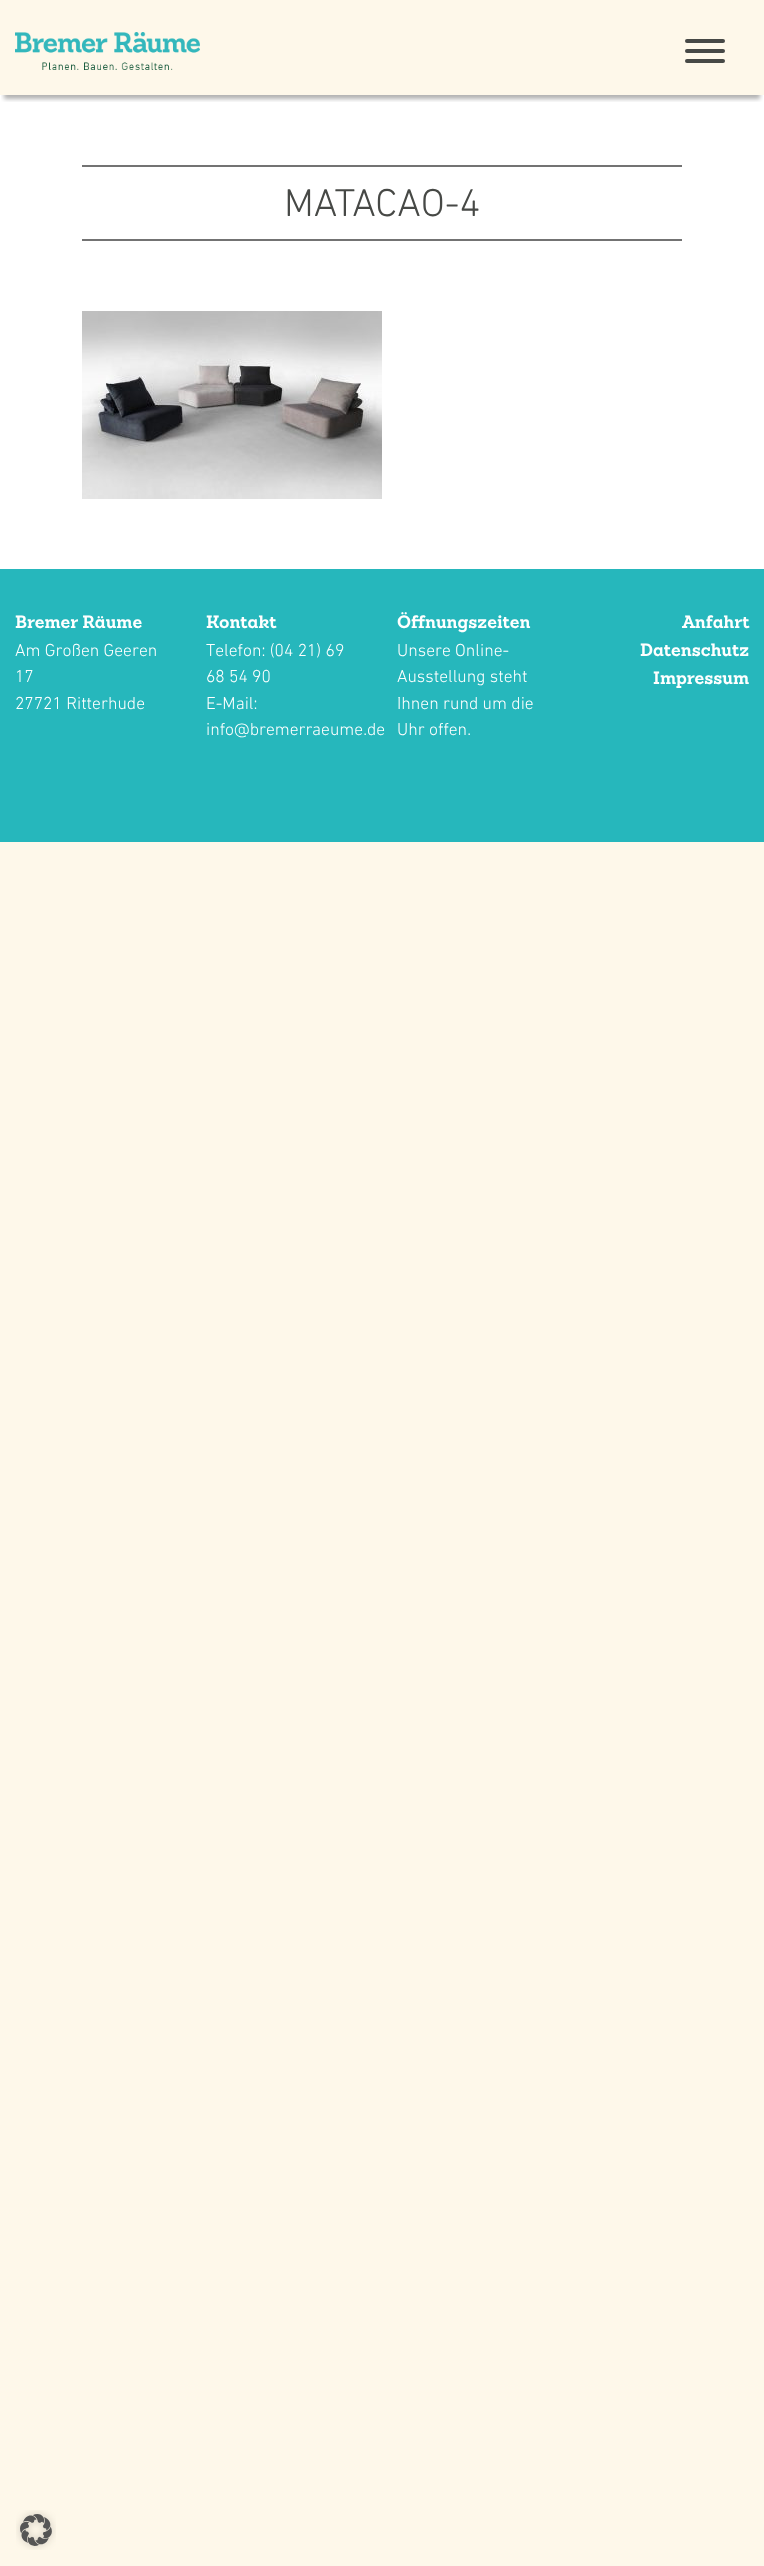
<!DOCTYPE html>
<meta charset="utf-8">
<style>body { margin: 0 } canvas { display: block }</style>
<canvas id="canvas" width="764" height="2566"></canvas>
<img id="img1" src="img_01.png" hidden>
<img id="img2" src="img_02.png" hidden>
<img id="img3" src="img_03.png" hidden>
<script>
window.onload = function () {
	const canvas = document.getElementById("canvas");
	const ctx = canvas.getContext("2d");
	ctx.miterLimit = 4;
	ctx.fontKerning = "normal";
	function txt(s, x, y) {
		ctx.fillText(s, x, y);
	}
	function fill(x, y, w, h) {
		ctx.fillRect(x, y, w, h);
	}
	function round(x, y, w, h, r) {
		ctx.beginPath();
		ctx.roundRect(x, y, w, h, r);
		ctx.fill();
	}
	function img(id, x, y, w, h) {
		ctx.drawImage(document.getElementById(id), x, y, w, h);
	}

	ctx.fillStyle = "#FEF8EA";
	fill(0, 0, 764, 2566);
	ctx.fillStyle = "#FFFFFF";
	fill(0, 95, 764, 474);
	ctx.save();
	ctx.beginPath();
	ctx.rect(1, 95, 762, 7);
	ctx.clip();
	ctx.fillStyle = "rgba(0, 0, 0, 0.3)";
	ctx.filter = "blur(2px)";
	ctx.beginPath();
	ctx.rect(4, 12, 756, 87);
	ctx.fill();
	ctx.filter = "none";
	ctx.restore();
	img("img1", 15, 32, 185, 38);
	ctx.fillStyle = "#474946";
	round(685, 39, 40, 4, 2);
	round(685, 49, 40, 4, 2);
	round(685, 59, 40, 4, 2);
	ctx.fillStyle = "#737373";
	fill(82, 165, 600, 2);
	fill(82, 239, 600, 2);
	img("img2", 82, 311, 300, 188);
	ctx.fillStyle = "#26B7BC";
	fill(0, 569, 764, 273);
	img("img3", 16, 2510, 40, 40);
	ctx.font = "300 39.5px DIN Next";
	ctx.fillStyle = "#474946";
	txt("MATACAO-4", 284, 216);
	ctx.font = "bold 17.6px Sanchez";
	ctx.fillStyle = "#FFFFFF";
	txt("Bremer Räume", 15, 628);
	ctx.font = "300 17.6px DIN Next";
	txt("Am Großen Geeren", 15, 656);
	txt("17", 15, 682);
	txt("27721 Ritterhude", 15, 709);
	ctx.font = "bold 17.6px Sanchez";
	txt("Kontakt", 206, 628);
	ctx.font = "300 17.6px DIN Next";
	txt("Telefon: (04 21) 69", 206, 656);
	txt("68 54 90", 206, 682);
	txt("E-Mail:", 206, 709);
	txt("info@bremerraeume.de", 206, 735);
	ctx.font = "bold 17.6px Sanchez";
	txt("Öffnungszeiten", 397, 628);
	ctx.font = "300 17.6px DIN Next";
	txt("Unsere Online-", 397, 656);
	txt("Ausstellung steht", 397, 682);
	txt("Ihnen rund um die", 397, 709);
	txt("Uhr offen.", 397, 735);
	ctx.font = "bold 17.6px Sanchez";
	txt("Anfahrt", 682, 628);
	txt("Datenschutz", 640, 656);
	txt("Impressum", 653, 684);
};
</script>
